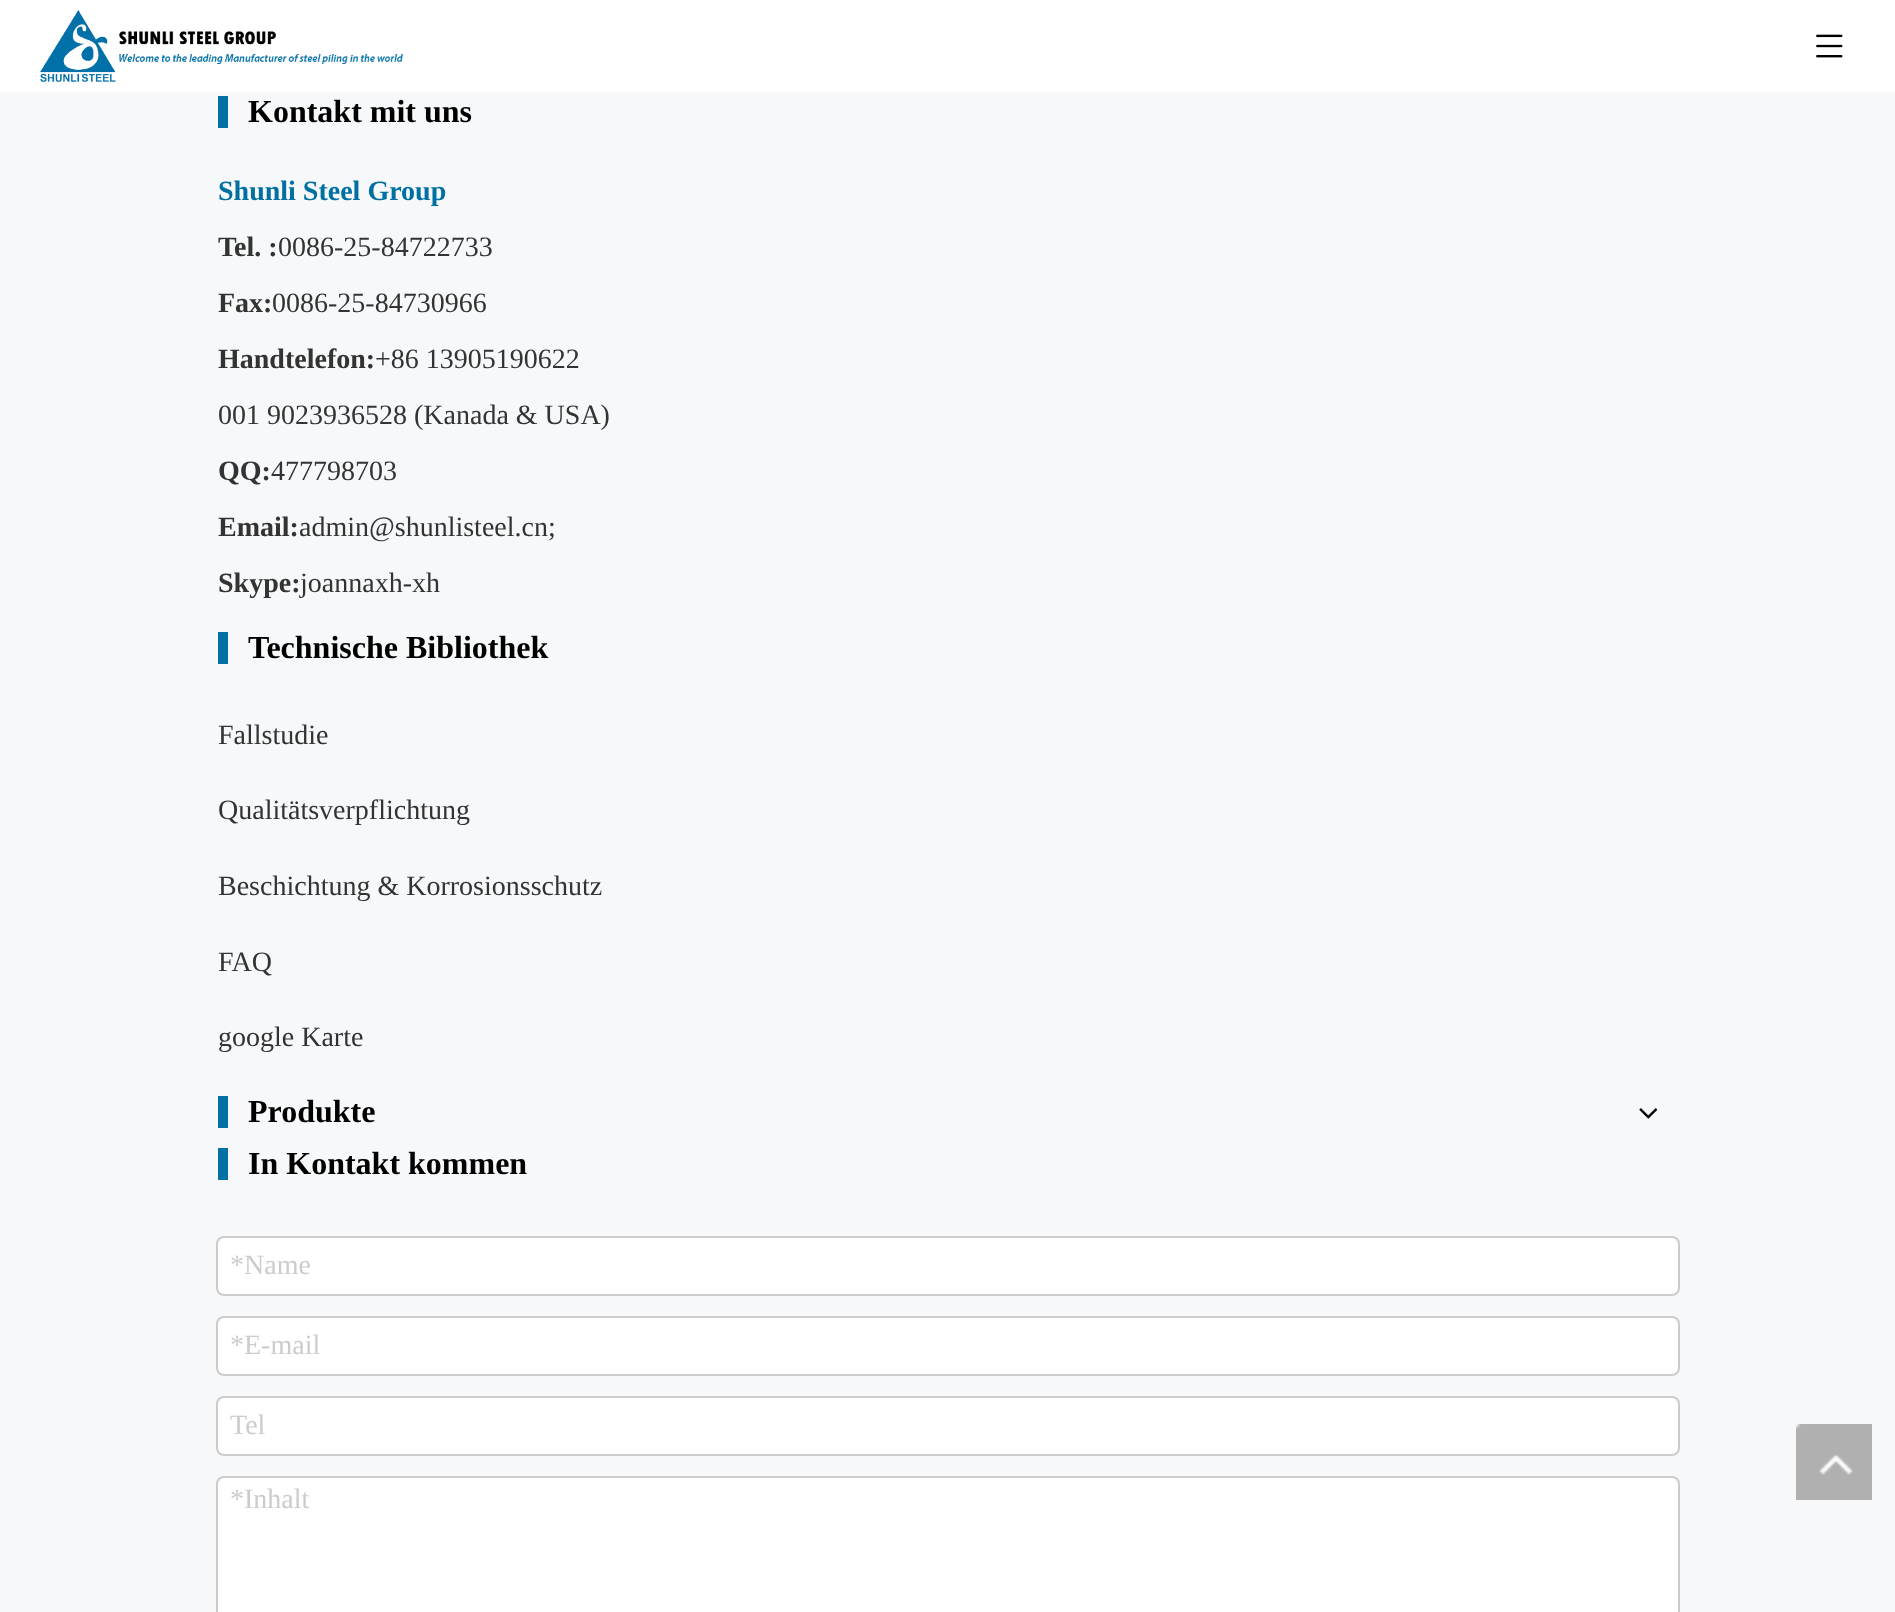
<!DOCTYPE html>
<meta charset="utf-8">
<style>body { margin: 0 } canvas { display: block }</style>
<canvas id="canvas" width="1895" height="1612"></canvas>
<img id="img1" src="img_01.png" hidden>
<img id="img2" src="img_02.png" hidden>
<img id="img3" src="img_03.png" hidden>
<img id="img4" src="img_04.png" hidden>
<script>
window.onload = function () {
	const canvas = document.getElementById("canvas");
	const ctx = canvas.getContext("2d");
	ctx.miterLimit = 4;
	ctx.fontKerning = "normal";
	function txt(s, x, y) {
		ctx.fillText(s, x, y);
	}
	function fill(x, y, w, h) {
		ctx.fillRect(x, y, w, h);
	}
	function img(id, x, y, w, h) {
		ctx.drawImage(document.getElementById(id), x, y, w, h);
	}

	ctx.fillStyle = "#F6F8FA";
	fill(0, 0, 1895, 1612);
	ctx.fillStyle = "#FFFFFF";
	fill(0, 0, 1895, 92);
	img("img1", 40, 10, 364, 72);
	img("img2", 1816, 34, 27, 24);
	ctx.fillStyle = "#0070A5";
	fill(218, 96, 10, 32);
	fill(218, 632, 10, 32);
	fill(218, 1096, 10, 32);
	img("img3", 1639, 1108, 19, 11);
	fill(218, 1148, 10, 32);
	ctx.fillStyle = "#FFFFFF";
	ctx.beginPath();
	ctx.roundRect(217, 1237, 1462, 58, 7);
	ctx.fill();
	ctx.strokeStyle = "#CCCCCC";
	ctx.lineWidth = 2;
	ctx.stroke();
	ctx.beginPath();
	ctx.roundRect(217, 1317, 1462, 58, 7);
	ctx.fill();
	ctx.stroke();
	ctx.beginPath();
	ctx.roundRect(217, 1397, 1462, 58, 7);
	ctx.fill();
	ctx.stroke();
	ctx.beginPath();
	ctx.roundRect(217, 1477, 1462, 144, 7);
	ctx.fill();
	ctx.stroke();
	img("img4", 1796, 1424, 76, 76);
	ctx.font = "bold 32px Liberation Serif";
	ctx.fillStyle = "#000000";
	txt("Kontakt mit uns", 248, 122);
	ctx.font = "bold 28px Liberation Serif";
	ctx.fillStyle = "#0070A2";
	txt("Shunli Steel Group", 218, 200);
	ctx.fillStyle = "#333333";
	txt("Tel. :", 218, 256);
	ctx.font = "28px Liberation Serif";
	txt("0086-25-84722733", 278, 256);
	ctx.font = "bold 28px Liberation Serif";
	txt("Fax:", 218, 312);
	ctx.font = "28px Liberation Serif";
	txt("0086-25-84730966", 272, 312);
	ctx.font = "bold 28px Liberation Serif";
	txt("Handtelefon:", 218, 368);
	ctx.font = "28px Liberation Serif";
	txt("+86 13905190622", 375, 368);
	txt("001 9023936528 (Kanada & USA)", 218, 424);
	ctx.font = "bold 28px Liberation Serif";
	txt("QQ:", 218, 480);
	ctx.font = "28px Liberation Serif";
	txt("477798703", 271, 480);
	ctx.font = "bold 28px Liberation Serif";
	txt("Email:", 218, 536);
	ctx.font = "28px Liberation Serif";
	txt("admin@shunlisteel.cn;", 299, 536);
	ctx.font = "bold 28px Liberation Serif";
	txt("Skype:", 218, 592);
	ctx.font = "28px Liberation Serif";
	txt("joannaxh-xh", 300, 592);
	ctx.font = "bold 32px Liberation Serif";
	ctx.fillStyle = "#000000";
	txt("Technische Bibliothek", 248, 658);
	ctx.font = "28px Liberation Serif";
	ctx.fillStyle = "#333333";
	txt("Fallstudie", 218, 744);
	txt("Qualitätsverpflichtung", 218, 819);
	txt("Beschichtung & Korrosionsschutz", 218, 895);
	txt("FAQ", 218, 971);
	txt("google Karte", 218, 1046);
	ctx.font = "bold 32px Liberation Serif";
	ctx.fillStyle = "#000000";
	txt("Produkte", 248, 1122);
	txt("In Kontakt kommen", 248, 1174);
	ctx.font = "28px Liberation Serif";
	ctx.fillStyle = "#CCCCCC";
	txt("*Name", 230, 1274);
	txt("*E-mail", 230, 1354);
	txt("Tel", 230, 1434);
	txt("*Inhalt", 230, 1508);
};
</script>
